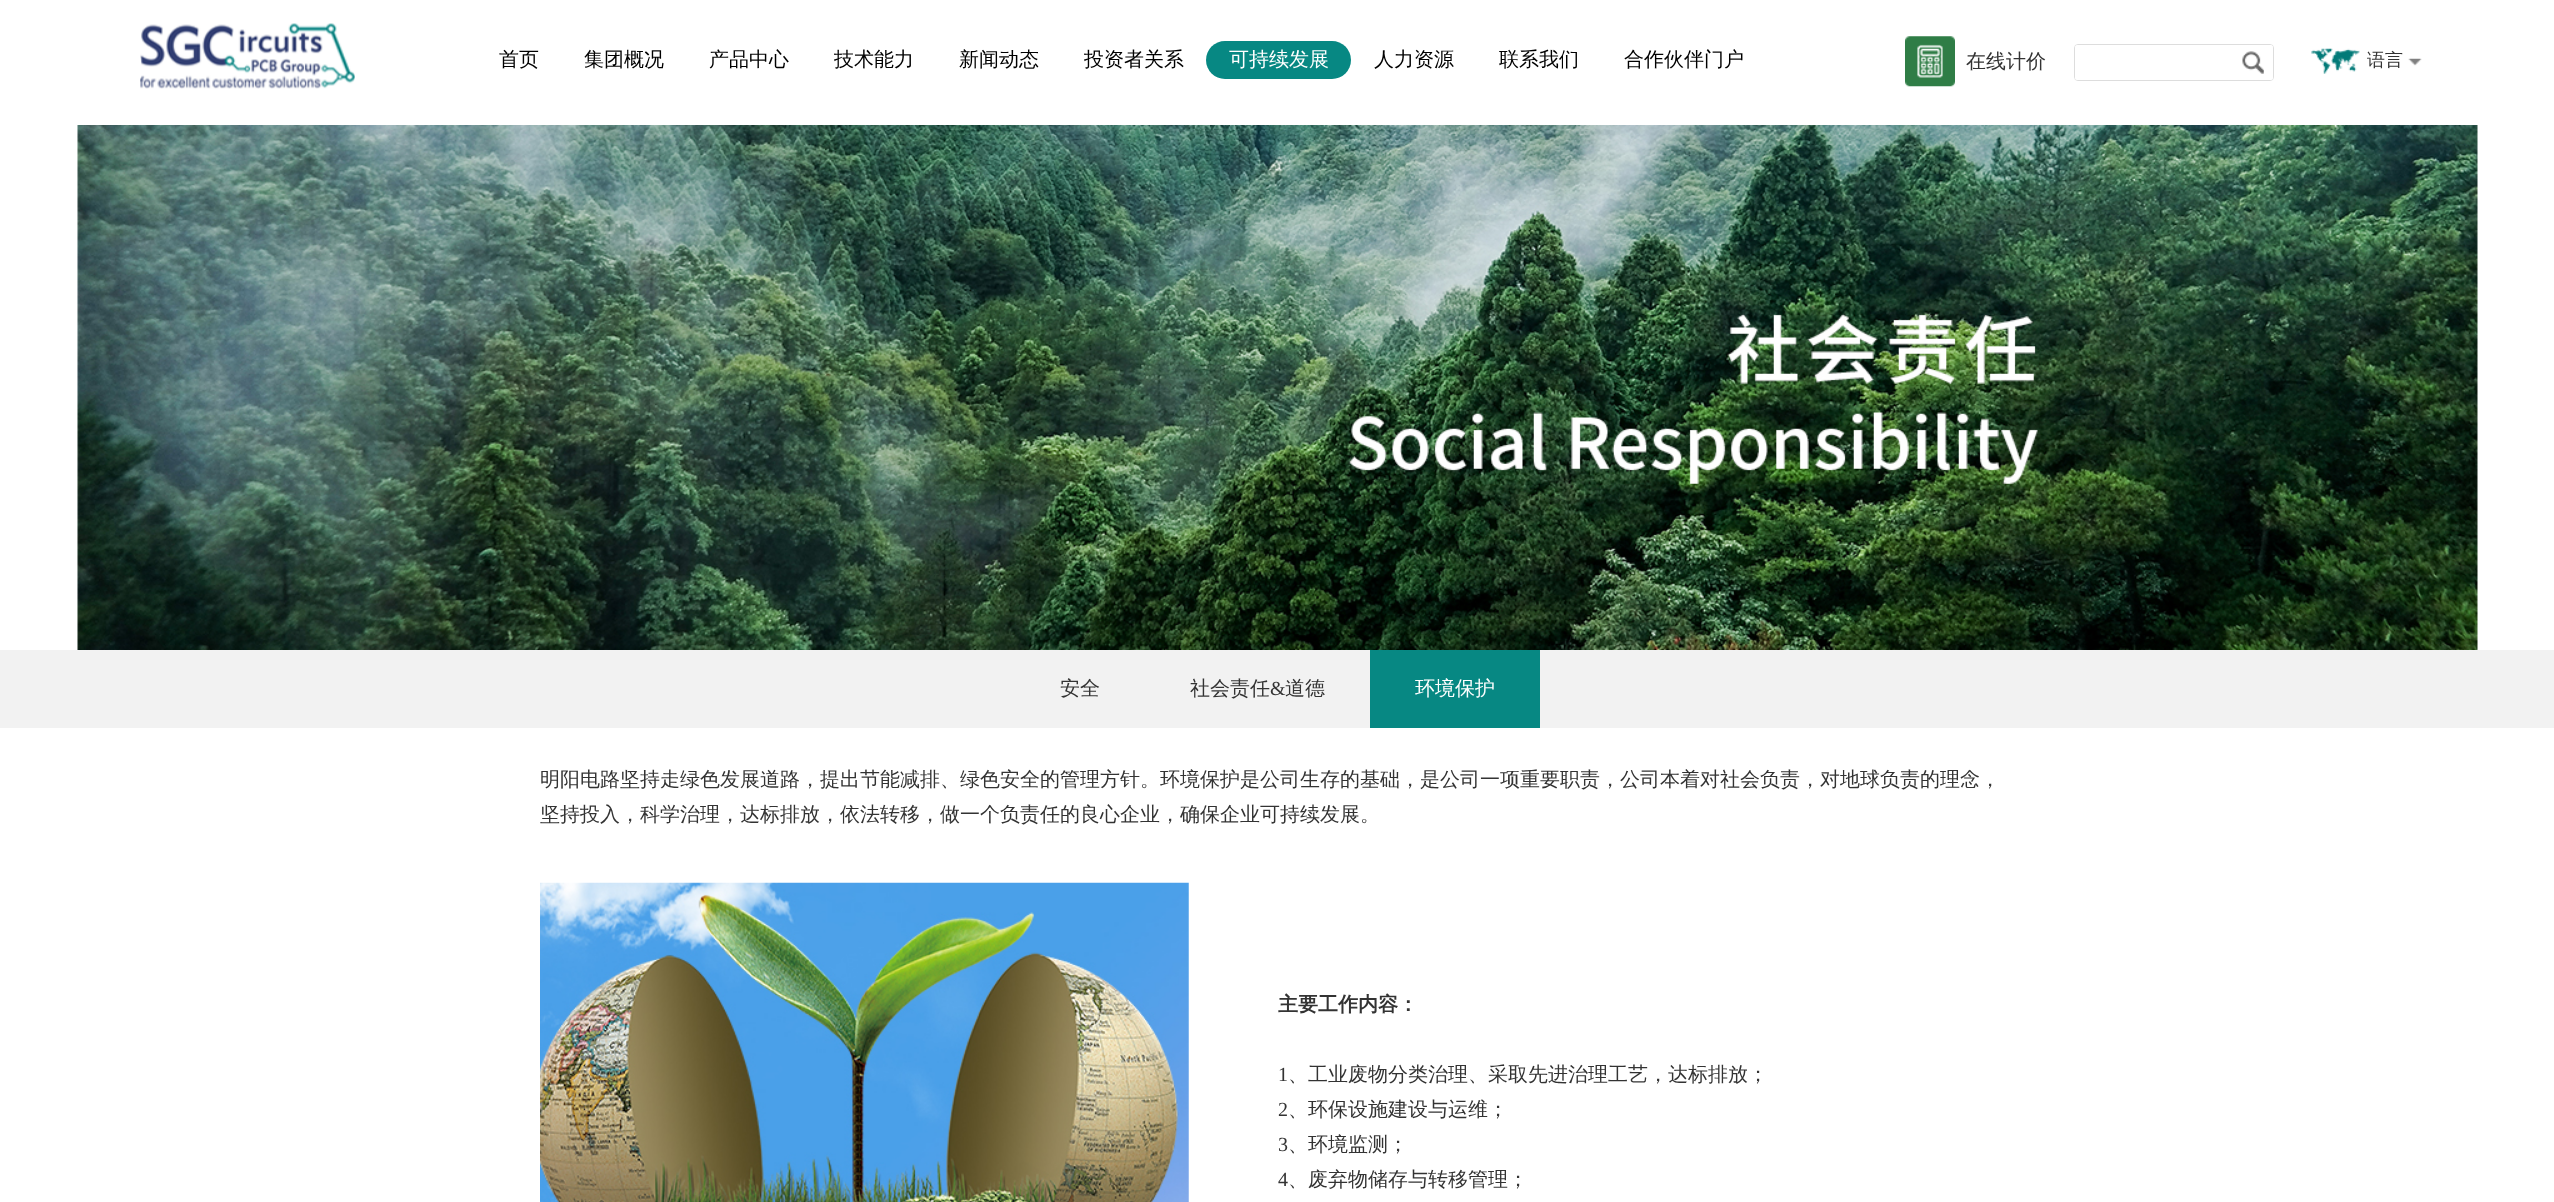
<!DOCTYPE html>
<meta charset="utf-8">
<style>body { margin: 0 } canvas { display: block }</style>
<canvas id="canvas" width="2554" height="1202"></canvas>
<img id="img1" src="img_01.png" hidden>
<img id="img2" src="img_02.png" hidden>
<img id="img3" src="img_03.png" hidden>
<img id="img4" src="img_04.png" hidden>
<img id="img5" src="img_05.png" hidden>
<img id="img6" src="img_06.png" hidden>
<img id="img7" src="img_07.png" hidden>
<script>
window.onload = function () {
	const canvas = document.getElementById("canvas");
	const ctx = canvas.getContext("2d");
	ctx.miterLimit = 4;
	ctx.fontKerning = "normal";
	function txt(s, x, y) {
		ctx.fillText(s, x, y);
	}
	function fill(x, y, w, h) {
		ctx.fillRect(x, y, w, h);
	}
	function round(x, y, w, h, r) {
		ctx.beginPath();
		ctx.roundRect(x, y, w, h, r);
		ctx.fill();
	}
	function img(id, x, y, w, h) {
		ctx.drawImage(document.getElementById(id), x, y, w, h);
	}

	ctx.fillStyle = "#FFFFFF";
	fill(0, 0, 2554, 1202);
	img("img1", 140, 23, 215, 66);
	ctx.fillStyle = "#078883";
	round(1206, 41, 145, 38, 19);
	img("img2", 1905, 36, 50, 51);
	ctx.beginPath();
	ctx.roundRect(2074.5, 44.5, 199, 36, 3.5);
	ctx.strokeStyle = "#DDDDDD";
	ctx.stroke();
	ctx.fillStyle = "#FFFFFF";
	ctx.beginPath();
	ctx.roundRect(2075, 45, 158, 35, [2.5, 0, 0, 2.5]);
	ctx.fill();
	ctx.beginPath();
	ctx.roundRect(2233, 45, 40, 35, [0, 2.5, 2.5, 0]);
	ctx.fill();
	img("img3", 2242, 51, 22, 23);
	img("img4", 2311, 48, 49, 26);
	img("img5", 2408, 58, 14, 8);
	img("img6", 77, 125, 2401, 525);
	ctx.fillStyle = "#F2F2F2";
	fill(0, 650, 2554, 78);
	ctx.fillStyle = "#078883";
	fill(1370, 650, 170, 78);
	img("img7", 540, 882, 649, 320);
	ctx.font = "500 20px WenQuanYi Zen Hei";
	ctx.fillStyle = "#000000";
	txt("首页", 499, 66);
	txt("集团概况", 584, 66);
	txt("产品中心", 709, 66);
	txt("技术能力", 834, 66);
	txt("新闻动态", 959, 66);
	txt("投资者关系", 1084, 66);
	ctx.fillStyle = "#FFFFFF";
	txt("可持续发展", 1229, 66);
	ctx.fillStyle = "#000000";
	txt("人力资源", 1374, 66);
	txt("联系我们", 1499, 66);
	txt("合作伙伴门户", 1624, 66);
	ctx.fillStyle = "#333333";
	txt("在线计价", 1966, 68);
	ctx.font = "500 18px WenQuanYi Zen Hei";
	txt("语言", 2367, 66);
	ctx.font = "500 20px WenQuanYi Zen Hei";
	txt("安全", 1060, 695);
	txt("社会责任", 1190, 695);
	ctx.font = "20px Liberation Serif";
	txt("&", 1270, 695);
	ctx.font = "500 20px WenQuanYi Zen Hei";
	txt("道德", 1285, 695);
	ctx.fillStyle = "#FFFFFF";
	txt("环境保护", 1415, 695);
	ctx.fillStyle = "#333333";
	txt("明阳电路坚持走绿色发展道路，提出节能减排、绿色安全的管理方针。环境保护是公司生存的基础，是公司一项重要职责，公司本着对社会负责，对地球负责的理念，", 540, 786);
	txt("坚持投入，科学治理，达标排放，依法转移，做一个负责任的良心企业，确保企业可持续发展。", 540, 821);
	ctx.font = "bold 20px WenQuanYi Zen Hei";
	txt("主要工作内容：", 1278, 1011);
	ctx.font = "20px Liberation Serif";
	txt("1", 1278, 1081);
	ctx.font = "500 20px WenQuanYi Zen Hei";
	txt("、工业废物分类治理、采取先进治理工艺，达标排放；", 1288, 1081);
	ctx.font = "20px Liberation Serif";
	txt("2", 1278, 1116);
	ctx.font = "500 20px WenQuanYi Zen Hei";
	txt("、环保设施建设与运维；", 1288, 1116);
	ctx.font = "20px Liberation Serif";
	txt("3", 1278, 1151);
	ctx.font = "500 20px WenQuanYi Zen Hei";
	txt("、环境监测；", 1288, 1151);
	ctx.font = "20px Liberation Serif";
	txt("4", 1278, 1186);
	ctx.font = "500 20px WenQuanYi Zen Hei";
	txt("、废弃物储存与转移管理；", 1288, 1186);
};
</script>
